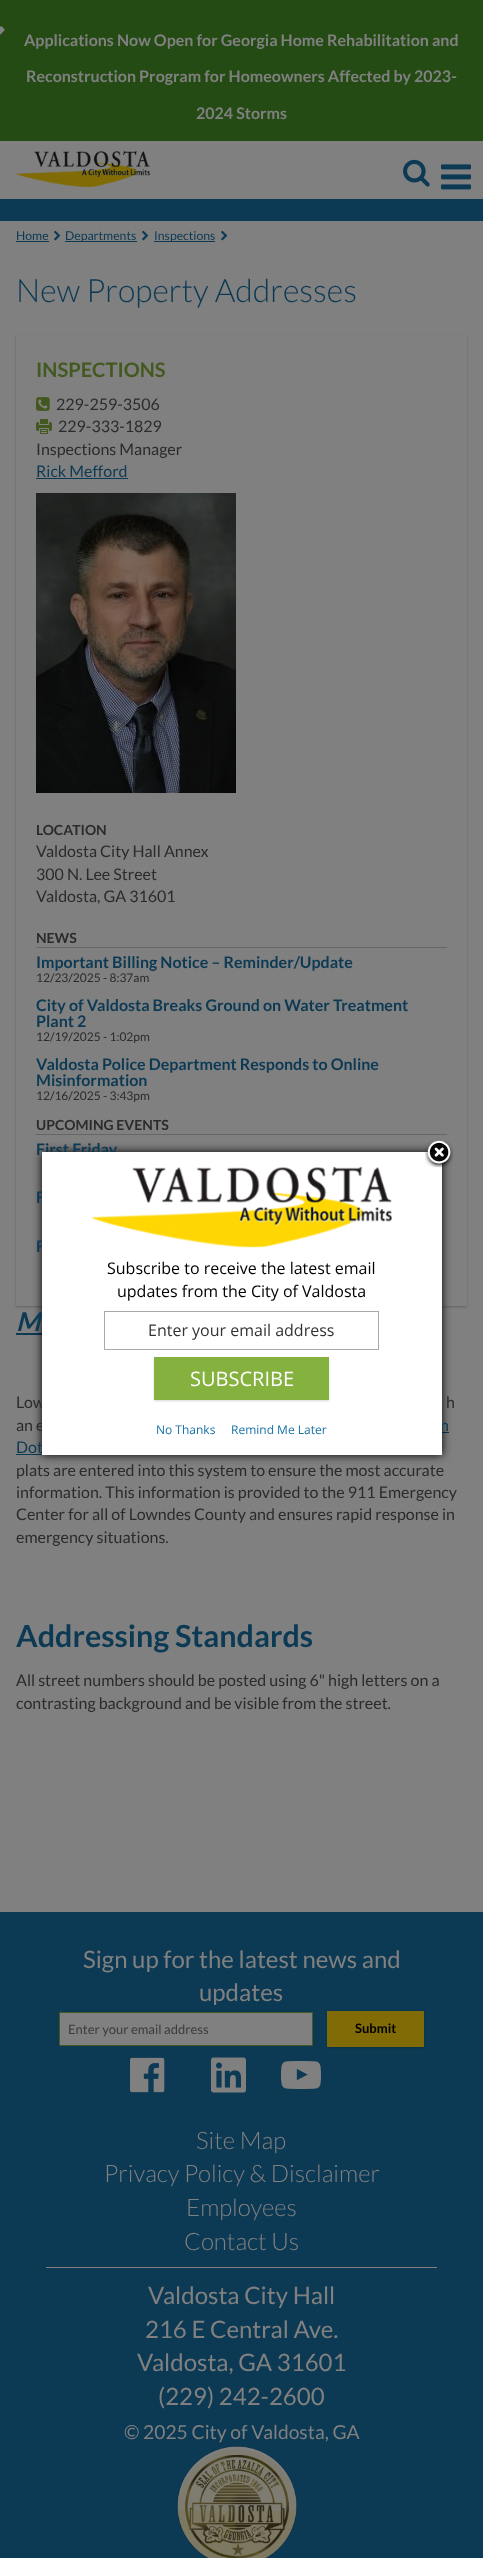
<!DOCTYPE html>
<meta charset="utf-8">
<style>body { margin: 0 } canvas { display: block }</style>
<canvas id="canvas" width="483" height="2558"></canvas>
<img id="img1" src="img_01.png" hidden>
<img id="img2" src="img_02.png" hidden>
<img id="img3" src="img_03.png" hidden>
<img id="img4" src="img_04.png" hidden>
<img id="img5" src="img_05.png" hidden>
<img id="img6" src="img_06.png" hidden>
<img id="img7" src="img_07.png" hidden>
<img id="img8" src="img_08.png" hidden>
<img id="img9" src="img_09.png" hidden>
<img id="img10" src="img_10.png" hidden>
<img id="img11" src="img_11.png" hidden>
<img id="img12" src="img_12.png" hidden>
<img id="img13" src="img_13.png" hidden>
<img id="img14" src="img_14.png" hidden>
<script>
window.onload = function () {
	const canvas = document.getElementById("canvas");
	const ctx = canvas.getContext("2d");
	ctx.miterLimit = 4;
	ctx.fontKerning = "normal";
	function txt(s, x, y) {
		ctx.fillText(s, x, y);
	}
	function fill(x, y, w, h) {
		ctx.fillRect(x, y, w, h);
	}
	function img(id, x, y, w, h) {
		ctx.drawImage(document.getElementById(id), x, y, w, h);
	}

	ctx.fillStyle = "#808080";
	fill(0, 0, 483, 2558);
	ctx.fillStyle = "#254B14";
	fill(0, 0, 483, 141);
	img("img1", 0, 26, 5, 9);
	img("img2", 16, 151, 134, 36);
	img("img3", 403, 159, 27, 28);
	ctx.fillStyle = "#0C3953";
	fill(0, 199, 483, 22);
	img("img4", 441, 164, 30, 26);
	fill(16, 241, 33, 1);
	img("img5", 54, 230, 7, 11);
	fill(65, 241, 72, 1);
	img("img5", 142, 230, 7, 11);
	fill(154, 241, 61, 1);
	img("img5", 221, 230, 7, 11);
	ctx.save();
	ctx.beginPath();
	ctx.moveTo(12, 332);
	ctx.lineTo(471, 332);
	ctx.lineTo(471, 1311);
	ctx.lineTo(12, 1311);
	ctx.closePath();
	ctx.moveTo(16, 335);
	ctx.lineTo(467, 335);
	ctx.lineTo(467, 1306);
	ctx.lineTo(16, 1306);
	ctx.closePath();
	ctx.clip("evenodd");
	ctx.fillStyle = "rgba(0, 0, 0, 0.24)";
	ctx.filter = "blur(1px)";
	ctx.beginPath();
	ctx.rect(16, 336, 451, 971);
	ctx.fill();
	ctx.filter = "none";
	ctx.restore();
	img("img6", 36, 397, 14, 14);
	img("img7", 36, 419, 16, 15);
	fill(36, 478, 92, 1);
	img("img8", 36, 493, 200, 300);
	ctx.fillStyle = "#666666";
	fill(36, 947, 411, 1);
	fill(36, 1134, 411, 1);
	ctx.fillStyle = "#0C3953";
	fill(16, 1333, 26, 2);
	fill(442, 1432, 7, 1);
	fill(16, 1454, 27, 1);
	fill(0, 1912, 483, 646);
	ctx.fillStyle = "#808080";
	ctx.beginPath();
	ctx.rect(59.5, 2012.5, 253, 33);
	ctx.fill();
	ctx.strokeStyle = "#43591F";
	ctx.stroke();
	ctx.fillStyle = "rgba(0, 0, 0, 0.15)";
	ctx.filter = "blur(1px)";
	ctx.beginPath();
	ctx.rect(327, 2012, 97, 36);
	ctx.fill();
	ctx.filter = "none";
	ctx.fillStyle = "#806B06";
	fill(327, 2011, 97, 36);
	img("img9", 130, 2057, 35, 36);
	img("img10", 211, 2057, 35, 36);
	img("img11", 281, 2060, 40, 30);
	ctx.fillStyle = "#808080";
	fill(46, 2267, 391, 1);
	img("img12", 177, 2446, 120, 112);
	ctx.fillStyle = "#000000";
	ctx.filter = "blur(5px)";
	ctx.beginPath();
	ctx.rect(42, 1152, 400, 303);
	ctx.fill();
	ctx.filter = "none";
	ctx.font = "bold 16px Lato";
	ctx.fillStyle = "#808080";
	txt("Applications Now Open for Georgia Home Rehabilitation and", 24, 46);
	txt("Reconstruction Program for Homeowners Affected by 2023-", 26, 82);
	txt("2024 Storms", 196, 119);
	ctx.font = "12.25px Lato";
	ctx.fillStyle = "#0C3953";
	txt("Home", 16, 240);
	txt("Departments", 65, 240);
	txt("Inspections", 154, 240);
	ctx.font = "300 32px Lato";
	txt("New Property Addresses", 16, 302);
	ctx.font = "bold 20px Lato";
	ctx.fillStyle = "#43591F";
	txt("INSPECTIONS", 36, 377);
	ctx.font = "16px Lato";
	ctx.fillStyle = "#2B2B2B";
	txt("229-259-3506", 56, 410);
	txt("229-333-1829", 58, 432);
	txt("Inspections Manager", 36, 455);
	ctx.fillStyle = "#0C3953";
	txt("Rick Mefford", 36, 477);
	ctx.font = "bold 14px Lato";
	ctx.fillStyle = "#2B2B2B";
	txt("LOCATION", 36, 835);
	ctx.font = "16px Lato";
	txt("Valdosta City Hall Annex", 36, 857);
	txt("300 N. Lee Street", 36, 880);
	txt("Valdosta, GA 31601", 36, 902);
	ctx.font = "bold 14px Lato";
	txt("NEWS", 36, 943);
	ctx.font = "bold 16px Lato";
	ctx.fillStyle = "#0C3953";
	txt("Important Billing Notice – Reminder/Update", 36, 968);
	ctx.font = "12px Lato";
	ctx.fillStyle = "#2B2B2B";
	txt("12/23/2025 - 8:37am", 36, 982);
	ctx.font = "bold 16px Lato";
	ctx.fillStyle = "#0C3953";
	txt("City of Valdosta Breaks Ground on Water Treatment", 36, 1011);
	txt("Plant 2", 36, 1027);
	ctx.font = "12px Lato";
	ctx.fillStyle = "#2B2B2B";
	txt("12/19/2025 - 1:02pm", 36, 1041);
	ctx.font = "bold 16px Lato";
	ctx.fillStyle = "#0C3953";
	txt("Valdosta Police Department Responds to Online", 36, 1070);
	txt("Misinformation", 36, 1086);
	ctx.font = "12px Lato";
	ctx.fillStyle = "#2B2B2B";
	txt("12/16/2025 - 3:43pm", 36, 1100);
	ctx.font = "bold 14px Lato";
	txt("UPCOMING EVENTS", 36, 1130);
	ctx.font = "bold 16px Lato";
	ctx.fillStyle = "#0C3953";
	txt("First Friday", 36, 1155);
	txt("F", 36, 1203);
	txt("F", 36, 1252);
	ctx.font = "italic bold 26px Lato";
	txt("M", 16, 1331);
	ctx.font = "16px Lato";
	ctx.fillStyle = "#2B2B2B";
	txt("Low", 16, 1408);
	txt("h", 446, 1408);
	txt("an e", 16, 1431);
	ctx.fillStyle = "#0C3953";
	txt("n", 440, 1431);
	txt("Dot", 16, 1453);
	ctx.fillStyle = "#2B2B2B";
	txt("plats are entered into this system to ensure the most accurate", 16, 1476);
	txt("information. This information is provided to the 911 Emergency", 16, 1498);
	txt("Center for all of Lowndes County and ensures rapid response in", 16, 1520);
	txt("emergency situations.", 16, 1543);
	ctx.font = "bold 30.5px Lato";
	ctx.fillStyle = "#0C3953";
	txt("Addressing Standards", 16, 1647);
	ctx.font = "16px Lato";
	ctx.fillStyle = "#2B2B2B";
	txt("All street numbers should be posted using 6\" high letters on a", 16, 1686);
	txt("contrasting background and be visible from the street.", 16, 1709);
	ctx.font = "24px Lato";
	ctx.fillStyle = "#808080";
	txt("Sign up for the latest news and", 83, 1968);
	txt("updates", 199, 2001);
	ctx.font = "13px Lato";
	ctx.fillStyle = "#3B3B3B";
	txt("Enter your email address", 68, 2034);
	ctx.font = "bold 13px Lato";
	ctx.fillStyle = "#000000";
	txt("Submit", 355, 2033);
	ctx.font = "300 24px Lato";
	ctx.fillStyle = "#808080";
	txt("Site Map", 196, 2149);
	txt("Privacy Policy & Disclaimer", 104, 2182);
	txt("Employees", 186, 2216);
	txt("Contact Us", 184, 2250);
	ctx.font = "24px Lato";
	txt("Valdosta City Hall", 148, 2304);
	txt("216 E Central Ave.", 145, 2338);
	txt("Valdosta, GA 31601", 137, 2371);
	txt("(229) 242-2600", 158, 2405);
	ctx.font = "19.25px Lato";
	txt("© 2025 City of Valdosta, GA", 124, 2439);
	ctx.fillStyle = "#FFFFFF";
	fill(42, 1152, 400, 303);
	img("img13", 425, 1140, 29, 28);
	img("img14", 92, 1166, 300, 82);
	ctx.font = "16px Open Sans";
	ctx.fillStyle = "#000000";
	txt("Subscribe to receive the latest email", 107, 1274);
	txt("updates from the City of Valdosta", 117, 1297);
	ctx.strokeStyle = "#AAAAAA";
	ctx.strokeRect(104.5, 1311.5, 274, 38);
	ctx.fillStyle = "#333333";
	txt("Enter your email address", 148, 1336);
	ctx.fillStyle = "rgba(0, 0, 0, 0.15)";
	ctx.filter = "blur(1px)";
	ctx.beginPath();
	ctx.rect(154, 1358, 175, 43);
	ctx.fill();
	ctx.filter = "none";
	ctx.fillStyle = "#85B13E";
	fill(154, 1357, 175, 43);
	ctx.font = "20px Open Sans";
	ctx.fillStyle = "#FFFFFF";
	txt("SUBSCRIBE", 190, 1386);
	ctx.font = "12px Open Sans";
	ctx.fillStyle = "#1872A6";
	txt("No Thanks", 156, 1434);
	txt("Remind Me Later", 231, 1434);
};
</script>
